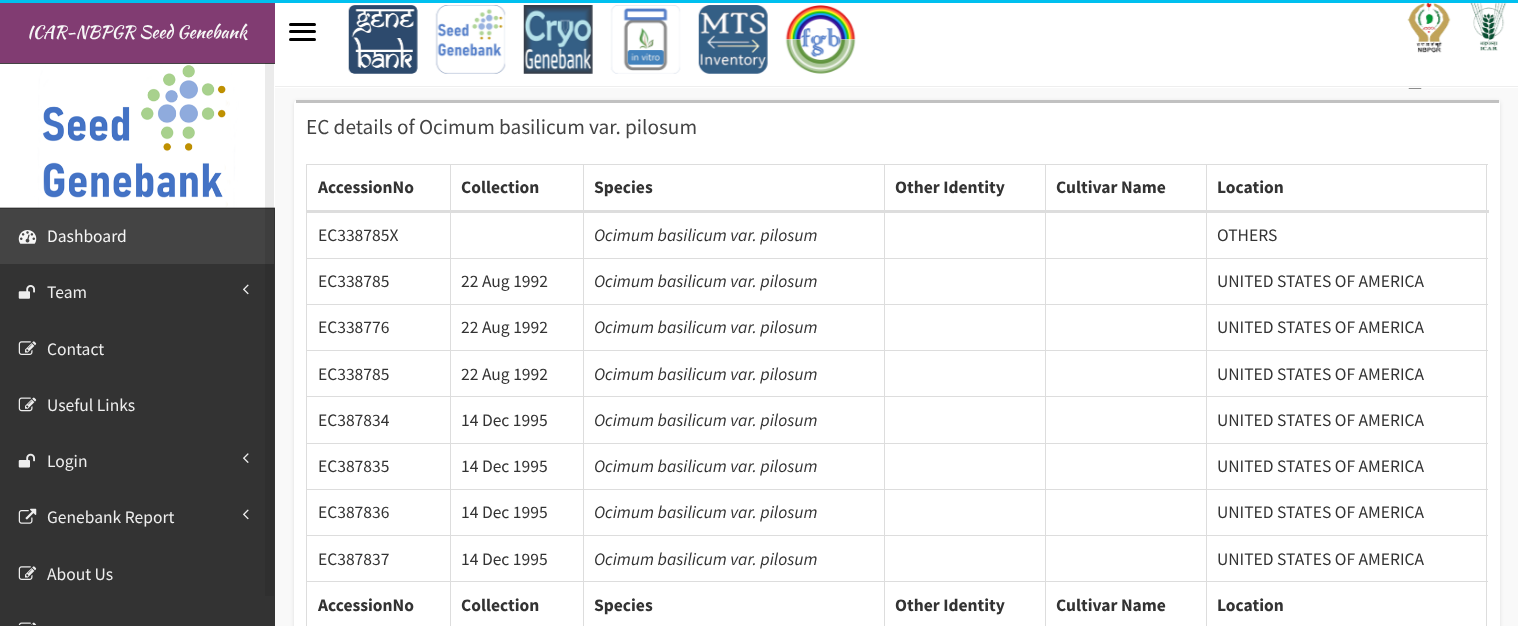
<!DOCTYPE html>
<meta charset="utf-8">
<style>body { margin: 0 } canvas { display: block }</style>
<canvas id="canvas" width="1518" height="626"></canvas>
<img id="img1" src="img_01.png" hidden>
<img id="img2" src="img_02.png" hidden>
<img id="img3" src="img_03.png" hidden>
<img id="img4" src="img_04.png" hidden>
<img id="img5" src="img_05.png" hidden>
<img id="img6" src="img_06.png" hidden>
<img id="img7" src="img_07.png" hidden>
<img id="img8" src="img_08.png" hidden>
<img id="img9" src="img_09.png" hidden>
<img id="img10" src="img_10.png" hidden>
<img id="img11" src="img_11.png" hidden>
<img id="img12" src="img_12.png" hidden>
<img id="img13" src="img_13.png" hidden>
<img id="img14" src="img_14.png" hidden>
<img id="img15" src="img_15.png" hidden>
<img id="img16" src="img_16.png" hidden>
<img id="img17" src="img_17.png" hidden>
<img id="img18" src="img_18.png" hidden>
<img id="img19" src="img_19.png" hidden>
<script>
window.onload = function () {
	const canvas = document.getElementById("canvas");
	const ctx = canvas.getContext("2d");
	ctx.miterLimit = 4;
	ctx.fontKerning = "normal";
	function txt(s, x, y) {
		ctx.fillText(s, x, y);
	}
	function fill(x, y, w, h) {
		ctx.fillRect(x, y, w, h);
	}
	function round(x, y, w, h, r) {
		ctx.beginPath();
		ctx.roundRect(x, y, w, h, r);
		ctx.fill();
	}
	function img(id, x, y, w, h) {
		ctx.drawImage(document.getElementById(id), x, y, w, h);
	}

	ctx.fillStyle = "#F9F9F9";
	fill(0, 0, 1518, 626);
	ctx.fillStyle = "#00C0EF";
	fill(0, 0, 1518, 3);
	ctx.fillStyle = "#813C72";
	fill(0, 3, 275, 60);
	ctx.fillStyle = "#FFFFFF";
	fill(275, 3, 1243, 85);
	ctx.fillStyle = "#EEEEEE";
	fill(275, 86, 1243, 1);
	ctx.fillStyle = "#000000";
	round(289, 23, 27, 3, 1.5);
	round(289, 30, 27, 3, 1.5);
	round(289, 38, 27, 3, 1.5);
	img("img1", 348, 5, 70, 69);
	img("img2", 435, 5, 71, 69);
	img("img3", 523, 5, 70, 69);
	img("img4", 610, 5, 71, 69);
	img("img5", 698, 5, 70, 69);
	img("img6", 785, 5, 71, 69);
	img("img7", 1407, 3, 44, 50);
	img("img8", 1470, 3, 37, 48);
	ctx.fillStyle = "#333333";
	fill(0, 207, 275, 419);
	ctx.fillStyle = "#444444";
	fill(0, 63, 275, 1);
	img("img9", 0, 64, 275, 144);
	fill(0, 209, 274, 55);
	img("img10", 18, 230, 19, 14);
	img("img11", 18, 285, 17, 14);
	img("img12", 243, 284, 6, 11);
	img("img13", 18, 341, 19, 14);
	img("img14", 18, 397, 19, 15);
	img("img15", 18, 453, 17, 15);
	img("img16", 243, 453, 6, 10);
	img("img17", 18, 508, 19, 16);
	img("img12", 243, 509, 6, 11);
	img("img13", 18, 566, 19, 14);
	img("img18", 18, 622, 19, 3);
	ctx.fillStyle = "rgba(0, 0, 0, 0.08)";
	fill(265, 63, 9, 533);
	img("img19", 1408, 88, 14, 1);
	ctx.fillStyle = "rgba(0, 0, 0, 0.1)";
	ctx.filter = "blur(2px)";
	ctx.beginPath();
	ctx.roundRect(294, 101, 1206, 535, 4);
	ctx.fill();
	ctx.filter = "none";
	ctx.fillStyle = "#FFFFFF";
	round(294, 100, 1206, 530, 4);
	ctx.fillStyle = "#C1C1C1";
	fill(296, 100, 1203, 3);
	ctx.fillStyle = "#DDDDDD";
	fill(306, 164, 1182, 1);
	fill(1486, 164, 1, 462);
	fill(306, 164, 1, 462);
	fill(1206, 258, 282, 1);
	fill(1206, 304, 282, 1);
	fill(1206, 350, 282, 1);
	fill(1206, 396, 282, 1);
	fill(1206, 443, 282, 1);
	fill(1206, 489, 282, 1);
	fill(1206, 535, 282, 1);
	fill(1206, 581, 282, 1);
	fill(1206, 581, 1, 45);
	fill(1045, 581, 163, 1);
	fill(1206, 535, 1, 48);
	fill(1045, 535, 163, 1);
	fill(1206, 489, 1, 47);
	fill(1045, 489, 163, 1);
	fill(1206, 443, 1, 47);
	fill(1045, 443, 163, 1);
	fill(1206, 396, 1, 48);
	fill(1045, 396, 163, 1);
	fill(1206, 350, 1, 48);
	fill(1045, 350, 163, 1);
	fill(1206, 304, 1, 47);
	fill(1045, 304, 163, 1);
	fill(1206, 258, 1, 47);
	fill(1045, 258, 163, 1);
	fill(1045, 581, 1, 45);
	fill(884, 581, 162, 1);
	fill(1045, 535, 1, 48);
	fill(884, 535, 162, 1);
	fill(1045, 489, 1, 47);
	fill(884, 489, 162, 1);
	fill(1045, 443, 1, 47);
	fill(884, 443, 162, 1);
	fill(1045, 396, 1, 48);
	fill(884, 396, 162, 1);
	fill(1045, 350, 1, 48);
	fill(884, 350, 162, 1);
	fill(1045, 304, 1, 47);
	fill(884, 304, 162, 1);
	fill(1045, 258, 1, 47);
	fill(884, 258, 162, 1);
	fill(884, 581, 1, 45);
	fill(583, 581, 302, 1);
	fill(884, 535, 1, 48);
	fill(583, 535, 302, 1);
	fill(884, 489, 1, 47);
	fill(583, 489, 302, 1);
	fill(884, 443, 1, 47);
	fill(583, 443, 302, 1);
	fill(884, 396, 1, 48);
	fill(583, 396, 302, 1);
	fill(884, 350, 1, 48);
	fill(583, 350, 302, 1);
	fill(884, 304, 1, 47);
	fill(583, 304, 302, 1);
	fill(884, 258, 1, 47);
	fill(583, 258, 302, 1);
	fill(583, 581, 1, 45);
	fill(450, 581, 134, 1);
	fill(583, 535, 1, 48);
	fill(450, 535, 134, 1);
	fill(583, 489, 1, 47);
	fill(450, 489, 134, 1);
	fill(583, 443, 1, 47);
	fill(450, 443, 134, 1);
	fill(583, 396, 1, 48);
	fill(450, 396, 134, 1);
	fill(583, 350, 1, 48);
	fill(450, 350, 134, 1);
	fill(583, 304, 1, 47);
	fill(450, 304, 134, 1);
	fill(583, 258, 1, 47);
	fill(450, 258, 134, 1);
	fill(450, 581, 1, 45);
	fill(306, 581, 145, 1);
	fill(450, 535, 1, 48);
	fill(306, 535, 145, 1);
	fill(450, 489, 1, 47);
	fill(306, 489, 145, 1);
	fill(450, 443, 1, 47);
	fill(306, 443, 145, 1);
	fill(450, 396, 1, 48);
	fill(306, 396, 145, 1);
	fill(450, 350, 1, 48);
	fill(306, 350, 145, 1);
	fill(450, 304, 1, 47);
	fill(306, 304, 145, 1);
	fill(450, 258, 1, 47);
	fill(306, 258, 145, 1);
	fill(450, 164, 1, 95);
	fill(583, 164, 1, 95);
	fill(884, 164, 1, 95);
	fill(1045, 164, 1, 95);
	fill(1206, 164, 1, 95);
	fill(306, 210, 1183, 3);
	ctx.font = "17.5px Kaushan Script";
	ctx.fillStyle = "#F6F6F6";
	txt("ICAR-NBPGR Seed Genebank", 27, 38);
	ctx.font = "17.5px Source Sans Pro";
	txt("Dashboard", 47, 242);
	ctx.fillStyle = "#EEEEEE";
	txt("Team", 47, 298);
	txt("Contact", 47, 355);
	txt("Useful Links", 47, 411);
	txt("Login", 47, 467);
	txt("Genebank Report", 47, 523);
	txt("About Us", 47, 580);
	ctx.font = "21.25px Source Sans Pro";
	ctx.fillStyle = "#444444";
	txt("EC details of Ocimum basilicum var. pilosum", 306, 134);
	ctx.font = "bold 17.5px Source Sans Pro";
	ctx.fillStyle = "#333333";
	txt("AccessionNo", 318, 193);
	txt("Collection", 461, 193);
	txt("Species", 594, 193);
	txt("Other Identity", 895, 193);
	txt("Cultivar Name", 1056, 193);
	txt("Location", 1217, 193);
	ctx.font = "17.5px Source Sans Pro";
	txt("EC338785X", 318, 241);
	ctx.font = "italic 17.5px Source Sans Pro";
	txt("Ocimum basilicum var. pilosum", 594, 241);
	ctx.font = "17.5px Source Sans Pro";
	txt("OTHERS", 1217, 241);
	txt("EC338785", 318, 287);
	txt("22 Aug 1992", 461, 287);
	ctx.font = "italic 17.5px Source Sans Pro";
	txt("Ocimum basilicum var. pilosum", 594, 287);
	ctx.font = "17.5px Source Sans Pro";
	txt("UNITED STATES OF AMERICA", 1217, 287);
	txt("EC338776", 318, 333);
	txt("22 Aug 1992", 461, 333);
	ctx.font = "italic 17.5px Source Sans Pro";
	txt("Ocimum basilicum var. pilosum", 594, 333);
	ctx.font = "17.5px Source Sans Pro";
	txt("UNITED STATES OF AMERICA", 1217, 333);
	txt("EC338785", 318, 380);
	txt("22 Aug 1992", 461, 380);
	ctx.font = "italic 17.5px Source Sans Pro";
	txt("Ocimum basilicum var. pilosum", 594, 380);
	ctx.font = "17.5px Source Sans Pro";
	txt("UNITED STATES OF AMERICA", 1217, 380);
	txt("EC387834", 318, 426);
	txt("14 Dec 1995", 461, 426);
	ctx.font = "italic 17.5px Source Sans Pro";
	txt("Ocimum basilicum var. pilosum", 594, 426);
	ctx.font = "17.5px Source Sans Pro";
	txt("UNITED STATES OF AMERICA", 1217, 426);
	txt("EC387835", 318, 472);
	txt("14 Dec 1995", 461, 472);
	ctx.font = "italic 17.5px Source Sans Pro";
	txt("Ocimum basilicum var. pilosum", 594, 472);
	ctx.font = "17.5px Source Sans Pro";
	txt("UNITED STATES OF AMERICA", 1217, 472);
	txt("EC387836", 318, 518);
	txt("14 Dec 1995", 461, 518);
	ctx.font = "italic 17.5px Source Sans Pro";
	txt("Ocimum basilicum var. pilosum", 594, 518);
	ctx.font = "17.5px Source Sans Pro";
	txt("UNITED STATES OF AMERICA", 1217, 518);
	txt("EC387837", 318, 565);
	txt("14 Dec 1995", 461, 565);
	ctx.font = "italic 17.5px Source Sans Pro";
	txt("Ocimum basilicum var. pilosum", 594, 565);
	ctx.font = "17.5px Source Sans Pro";
	txt("UNITED STATES OF AMERICA", 1217, 565);
	ctx.font = "bold 17.5px Source Sans Pro";
	txt("AccessionNo", 318, 611);
	txt("Collection", 461, 611);
	txt("Species", 594, 611);
	txt("Other Identity", 895, 611);
	txt("Cultivar Name", 1056, 611);
	txt("Location", 1217, 611);
};
</script>
